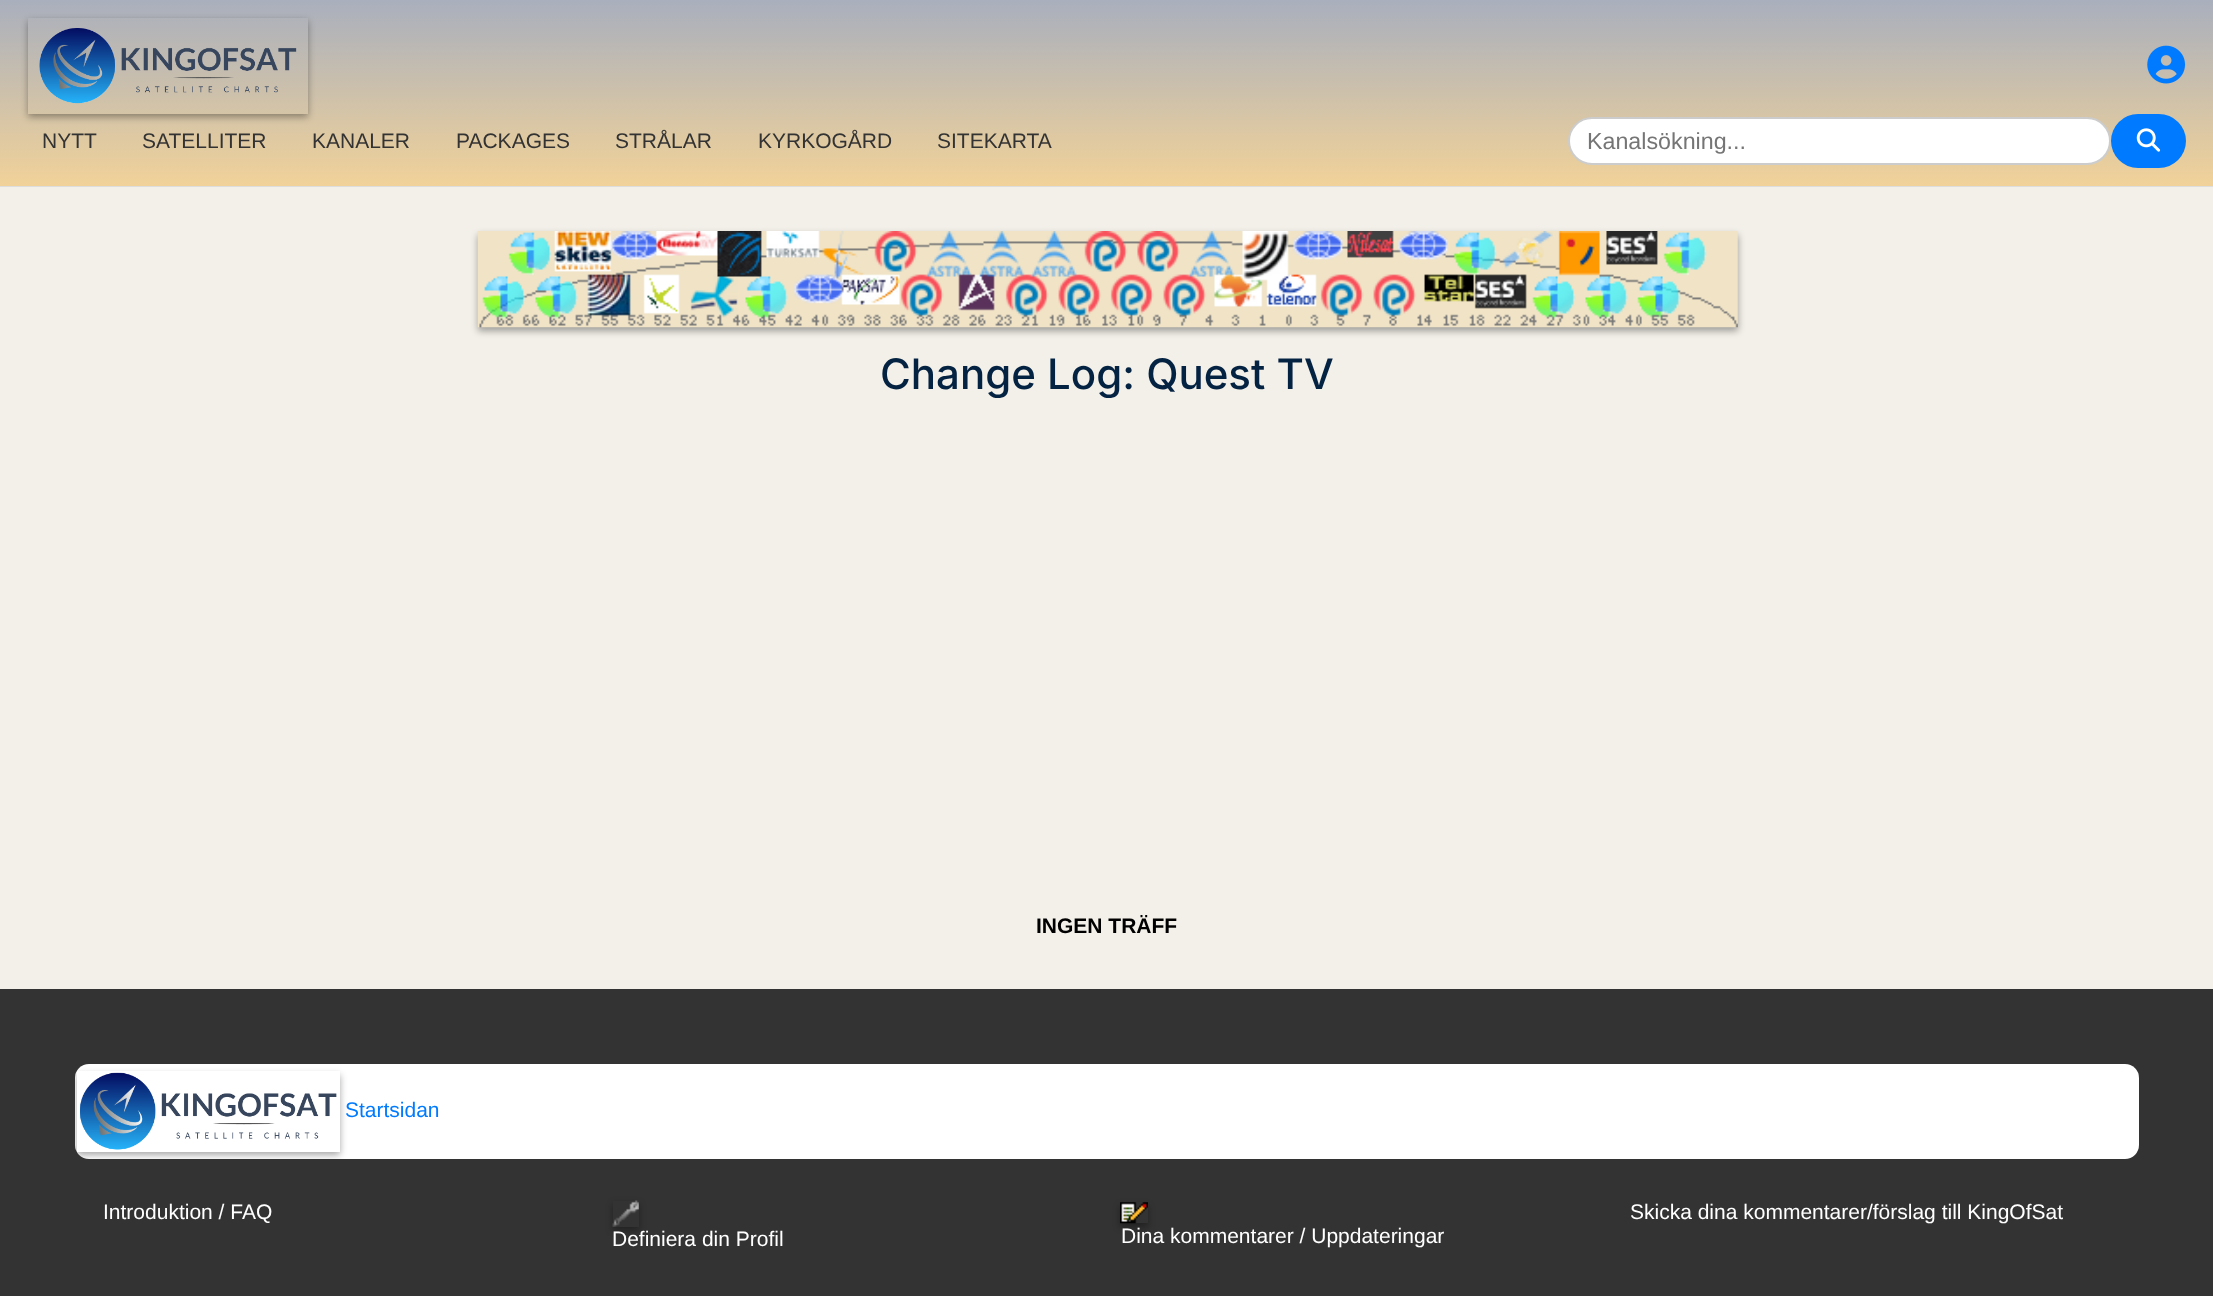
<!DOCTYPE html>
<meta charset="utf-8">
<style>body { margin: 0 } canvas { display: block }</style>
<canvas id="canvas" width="2213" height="1296"></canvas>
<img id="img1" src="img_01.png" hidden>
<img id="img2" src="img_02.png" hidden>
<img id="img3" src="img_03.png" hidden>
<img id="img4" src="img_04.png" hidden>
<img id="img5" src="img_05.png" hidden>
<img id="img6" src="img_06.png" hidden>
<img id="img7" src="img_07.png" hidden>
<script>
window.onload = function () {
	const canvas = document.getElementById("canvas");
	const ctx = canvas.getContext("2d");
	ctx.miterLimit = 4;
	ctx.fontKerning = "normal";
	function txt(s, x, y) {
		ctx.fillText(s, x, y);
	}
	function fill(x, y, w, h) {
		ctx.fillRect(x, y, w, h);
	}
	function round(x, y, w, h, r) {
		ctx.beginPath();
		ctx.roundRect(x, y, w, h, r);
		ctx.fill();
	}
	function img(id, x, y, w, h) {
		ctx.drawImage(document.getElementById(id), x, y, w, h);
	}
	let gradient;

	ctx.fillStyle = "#F3F0E9";
	fill(0, 0, 2213, 1296);
	gradient = ctx.createLinearGradient(1107, 0, 1107, 186);
	gradient.addColorStop(0, "#A9AFBD");
	gradient.addColorStop(1, "#F1D299");
	ctx.fillStyle = gradient;
	fill(0, 0, 2213, 186);
	ctx.fillStyle = "#DDDDDD";
	fill(0, 186, 2213, 1);
	ctx.save();
	ctx.beginPath();
	ctx.moveTo(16, 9);
	ctx.lineTo(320, 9);
	ctx.lineTo(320, 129);
	ctx.lineTo(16, 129);
	ctx.closePath();
	ctx.moveTo(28, 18);
	ctx.lineTo(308, 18);
	ctx.lineTo(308, 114);
	ctx.lineTo(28, 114);
	ctx.closePath();
	ctx.clip("evenodd");
	ctx.fillStyle = "rgba(0, 0, 0, 0.35)";
	ctx.filter = "blur(3.5px)";
	ctx.beginPath();
	ctx.rect(28, 21, 280, 96);
	ctx.fill();
	ctx.filter = "none";
	ctx.restore();
	img("img1", 39, 28, 258, 76);
	img("img2", 2147, 45, 39, 39);
	ctx.fillStyle = "#FFFFFF";
	ctx.beginPath();
	ctx.roundRect(1569, 118, 541, 46, 23);
	ctx.fill();
	ctx.strokeStyle = "#CCCCCC";
	ctx.lineWidth = 2;
	ctx.stroke();
	ctx.fillStyle = "#007BFF";
	round(2111, 114, 75, 54, 27);
	img("img3", 2136, 128, 25, 24);
	ctx.fillStyle = "rgba(0, 0, 0, 0.35)";
	ctx.filter = "blur(3.5px)";
	ctx.beginPath();
	ctx.rect(478, 235, 1260, 96);
	ctx.fill();
	ctx.filter = "none";
	img("img4", 477, 231, 1261, 97);
	ctx.fillStyle = "#333333";
	fill(0, 989, 2213, 307);
	ctx.fillStyle = "#FFFFFF";
	round(75, 1064, 2064, 95, 14);
	ctx.save();
	ctx.beginPath();
	ctx.roundRect(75, 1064, 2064, 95, 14);
	ctx.clip();
	ctx.beginPath();
	ctx.moveTo(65, 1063);
	ctx.lineTo(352, 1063);
	ctx.lineTo(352, 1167);
	ctx.lineTo(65, 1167);
	ctx.closePath();
	ctx.moveTo(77, 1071);
	ctx.lineTo(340, 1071);
	ctx.lineTo(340, 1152);
	ctx.lineTo(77, 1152);
	ctx.closePath();
	ctx.clip("evenodd");
	ctx.fillStyle = "rgba(0, 0, 0, 0.35)";
	ctx.filter = "blur(3.5px)";
	ctx.beginPath();
	ctx.rect(77, 1075, 263, 80);
	ctx.fill();
	ctx.filter = "none";
	ctx.restore();
	img("img5", 80, 1072, 257, 78);
	ctx.save();
	ctx.beginPath();
	ctx.moveTo(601, 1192);
	ctx.lineTo(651, 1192);
	ctx.lineTo(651, 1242);
	ctx.lineTo(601, 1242);
	ctx.closePath();
	ctx.moveTo(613, 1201);
	ctx.lineTo(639, 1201);
	ctx.lineTo(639, 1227);
	ctx.lineTo(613, 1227);
	ctx.closePath();
	ctx.clip("evenodd");
	ctx.fillStyle = "rgba(0, 0, 0, 0.35)";
	ctx.filter = "blur(3.5px)";
	ctx.beginPath();
	ctx.rect(613, 1204, 26, 26);
	ctx.fill();
	ctx.filter = "none";
	ctx.restore();
	img("img6", 612, 1200, 27, 27);
	ctx.save();
	ctx.beginPath();
	ctx.moveTo(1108, 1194);
	ctx.lineTo(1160, 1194);
	ctx.lineTo(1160, 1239);
	ctx.lineTo(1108, 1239);
	ctx.closePath();
	ctx.moveTo(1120, 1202);
	ctx.lineTo(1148, 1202);
	ctx.lineTo(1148, 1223);
	ctx.lineTo(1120, 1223);
	ctx.closePath();
	ctx.clip("evenodd");
	ctx.fillStyle = "rgba(0, 0, 0, 0.35)";
	ctx.filter = "blur(3.5px)";
	ctx.beginPath();
	ctx.rect(1120, 1206, 28, 21);
	ctx.fill();
	ctx.filter = "none";
	ctx.restore();
	img("img7", 1120, 1202, 28, 22);
	ctx.font = "21px Liberation Sans";
	ctx.fillStyle = "#333333";
	txt("NYTT", 42, 148);
	txt("SATELLITER", 142, 148);
	txt("KANALER", 312, 148);
	txt("PACKAGES", 456, 148);
	txt("STRÅLAR", 615, 148);
	txt("KYRKOGÅRD", 758, 148);
	txt("SITEKARTA", 937, 148);
	ctx.font = "23.25px Liberation Sans";
	ctx.fillStyle = "#757575";
	txt("Kanalsökning...", 1587, 149);
	ctx.font = "500 42px Inter";
	ctx.fillStyle = "#042242";
	txt("Change Log: Quest TV", 880, 389);
	ctx.font = "bold 21px Liberation Sans";
	ctx.fillStyle = "#000000";
	txt("INGEN TRÄFF", 1036, 933);
	ctx.font = "21px Liberation Sans";
	ctx.fillStyle = "#007BFF";
	txt("Startsidan", 345, 1117);
	ctx.fillStyle = "#FFFFFF";
	txt("Introduktion / FAQ", 103, 1219);
	txt("Skicka dina kommentarer/förslag till KingOfSat", 1630, 1219);
	txt("Definiera din Profil", 612, 1246);
	txt("Dina kommentarer / Uppdateringar", 1121, 1243);
};
</script>
